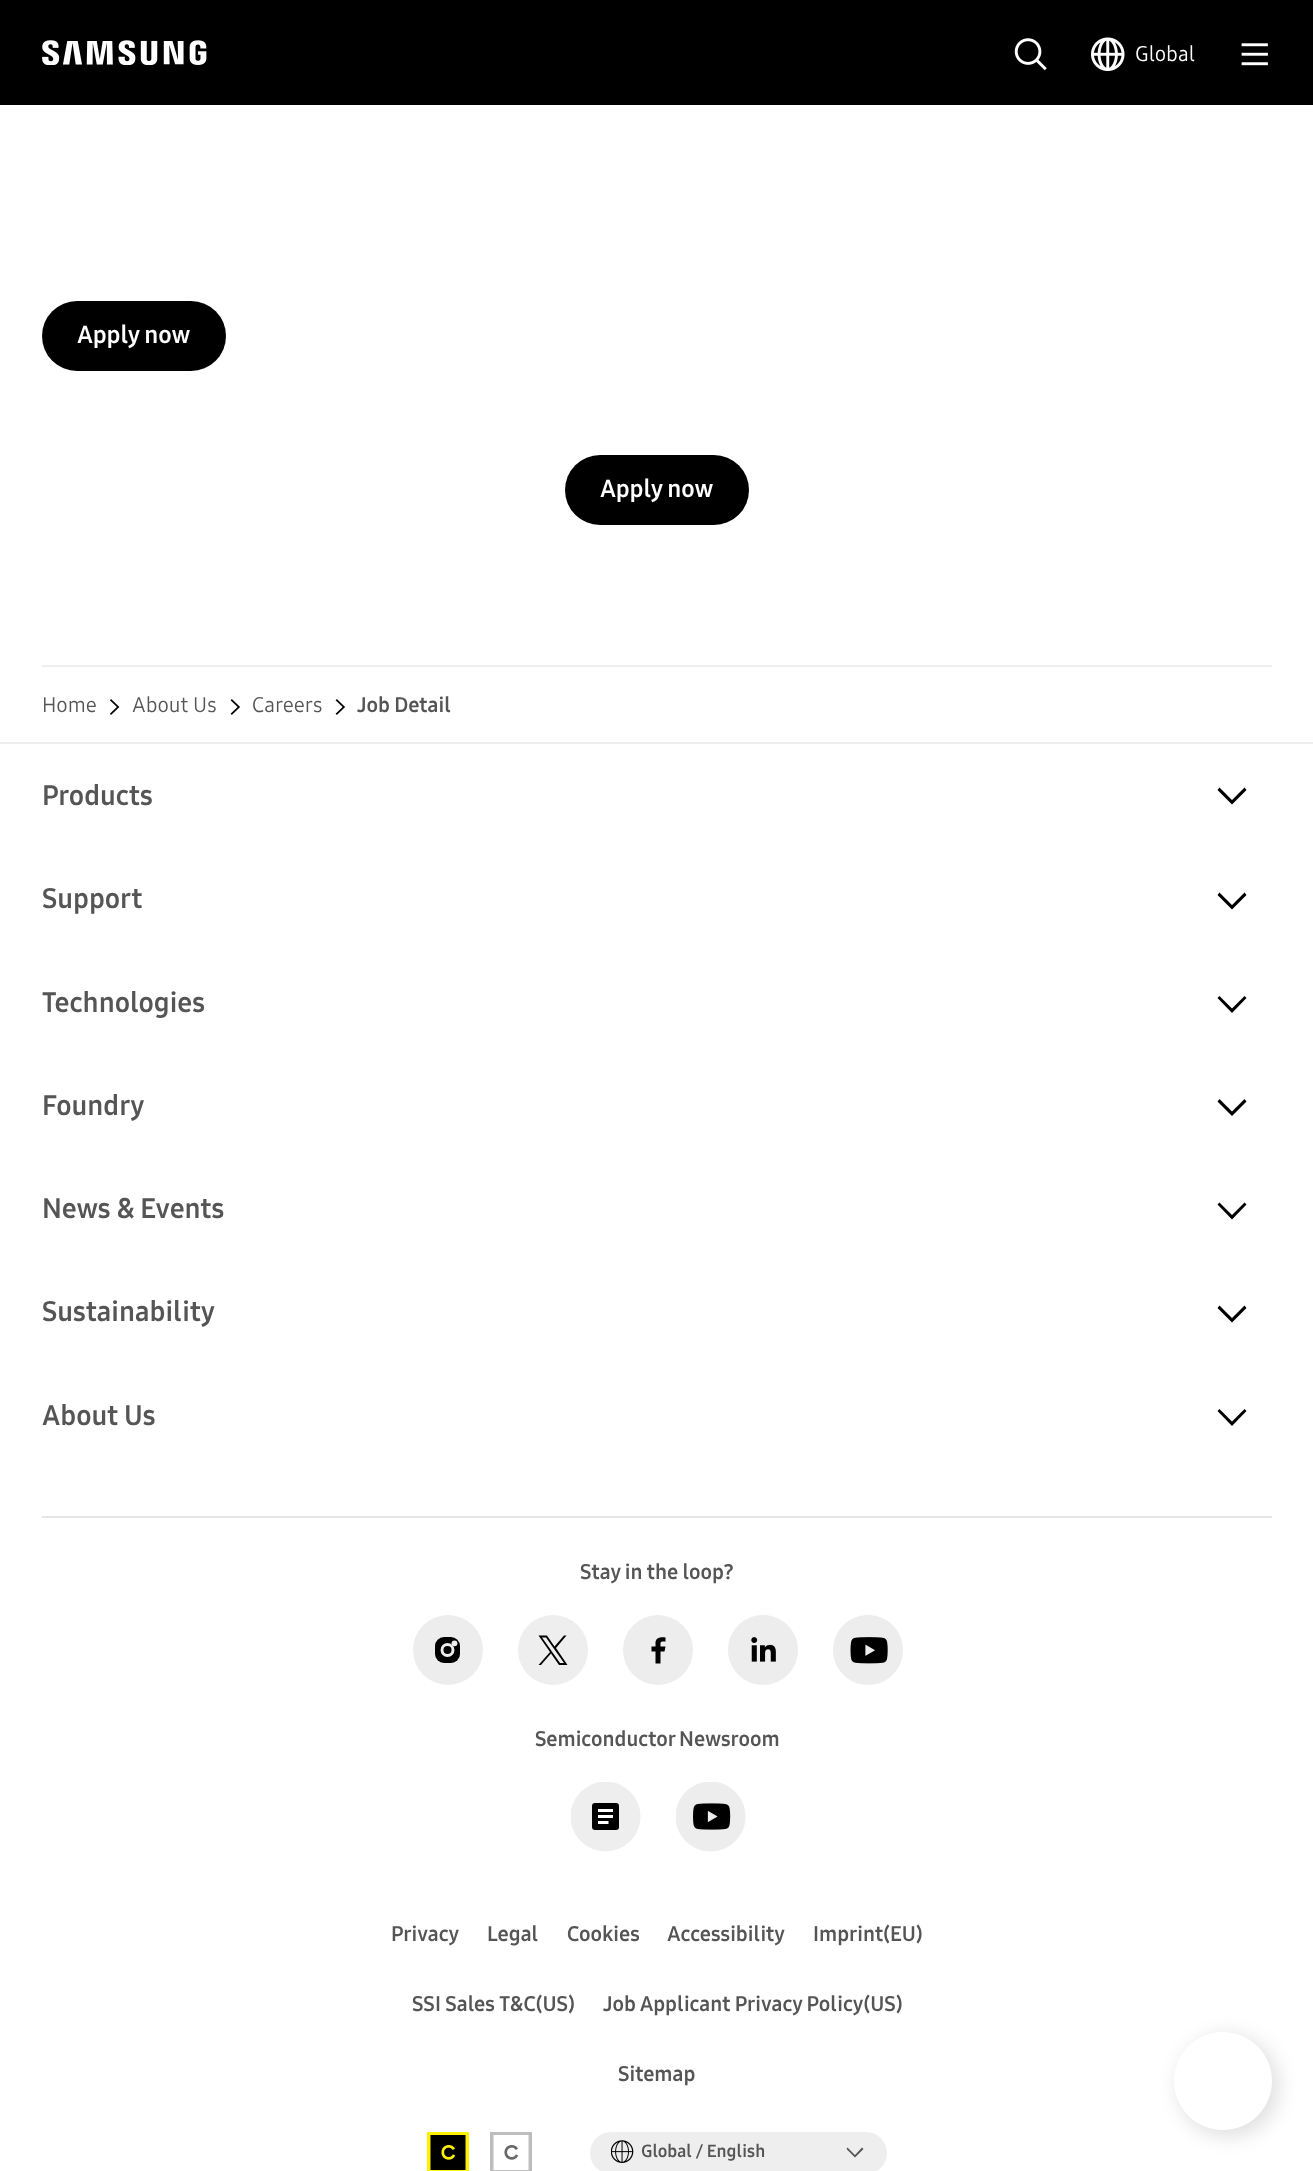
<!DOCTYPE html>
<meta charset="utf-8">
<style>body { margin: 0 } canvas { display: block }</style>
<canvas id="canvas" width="1313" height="2171"></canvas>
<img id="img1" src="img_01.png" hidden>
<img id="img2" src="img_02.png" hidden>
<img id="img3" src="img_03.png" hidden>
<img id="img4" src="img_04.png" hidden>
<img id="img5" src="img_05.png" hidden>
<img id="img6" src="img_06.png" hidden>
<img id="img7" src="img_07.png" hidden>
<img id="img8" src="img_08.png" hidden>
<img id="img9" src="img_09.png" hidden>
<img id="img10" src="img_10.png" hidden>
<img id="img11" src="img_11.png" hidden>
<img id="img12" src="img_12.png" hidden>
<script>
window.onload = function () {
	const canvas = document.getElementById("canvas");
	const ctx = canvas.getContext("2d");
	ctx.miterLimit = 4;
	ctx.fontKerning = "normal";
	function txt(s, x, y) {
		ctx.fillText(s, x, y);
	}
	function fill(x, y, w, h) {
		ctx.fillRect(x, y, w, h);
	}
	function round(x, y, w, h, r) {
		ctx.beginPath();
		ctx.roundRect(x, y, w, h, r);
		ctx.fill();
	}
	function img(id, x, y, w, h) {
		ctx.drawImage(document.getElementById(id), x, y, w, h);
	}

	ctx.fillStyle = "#FFFFFF";
	fill(0, 0, 1313, 2171);
	ctx.fillStyle = "#000000";
	fill(0, 0, 1313, 105);
	img("img1", 42, 40, 165, 25);
	img("img2", 1014, 38, 33, 33);
	img("img3", 1091, 37, 34, 34);
	img("img4", 1241, 43, 27, 23);
	round(42, 301, 184, 70, 35);
	round(565, 455, 184, 70, 35);
	ctx.fillStyle = "rgba(0, 0, 0, 0.12)";
	ctx.filter = "blur(9.5px)";
	ctx.beginPath();
	ctx.roundRect(1178, 2035, 101, 102, 50.5);
	ctx.fill();
	ctx.filter = "none";
	ctx.fillStyle = "#FFFFFF";
	ctx.beginPath();
	ctx.arc(1223, 2081, 49, 0, Math.PI * 2);
	ctx.fill();
	ctx.fillStyle = "#EEEEEE";
	fill(42, 665, 1230, 2);
	img("img5", 110, 699, 10, 16);
	img("img6", 230, 699, 10, 16);
	img("img6", 335, 699, 10, 16);
	fill(0, 742, 1313, 2);
	ctx.fillStyle = "#000000";
	ctx.beginPath();
	ctx.moveTo(1232, 804.5);
	ctx.lineTo(1217.5, 790);
	ctx.lineTo(1219.5, 787.5);
	ctx.lineTo(1232, 800);
	ctx.lineTo(1244.5, 787.5);
	ctx.lineTo(1246.5, 790);
	ctx.closePath();
	ctx.fill();
	ctx.beginPath();
	ctx.moveTo(1232, 909.5);
	ctx.lineTo(1217.5, 895);
	ctx.lineTo(1219.5, 892.5);
	ctx.lineTo(1232, 905);
	ctx.lineTo(1244.5, 892.5);
	ctx.lineTo(1246.5, 895);
	ctx.closePath();
	ctx.fill();
	ctx.beginPath();
	ctx.moveTo(1232, 1013);
	ctx.lineTo(1217.5, 998);
	ctx.lineTo(1219.5, 996);
	ctx.lineTo(1232, 1008.5);
	ctx.lineTo(1244.5, 996);
	ctx.lineTo(1246.5, 998);
	ctx.closePath();
	ctx.fill();
	ctx.beginPath();
	ctx.moveTo(1232, 1116);
	ctx.lineTo(1217.5, 1101.5);
	ctx.lineTo(1219.5, 1099);
	ctx.lineTo(1232, 1111.5);
	ctx.lineTo(1244.5, 1099);
	ctx.lineTo(1246.5, 1101.5);
	ctx.closePath();
	ctx.fill();
	ctx.beginPath();
	ctx.moveTo(1232, 1219.5);
	ctx.lineTo(1217.5, 1204.5);
	ctx.lineTo(1219.5, 1202.5);
	ctx.lineTo(1232, 1215);
	ctx.lineTo(1244.5, 1202.5);
	ctx.lineTo(1246.5, 1204.5);
	ctx.closePath();
	ctx.fill();
	ctx.beginPath();
	ctx.moveTo(1232, 1322.5);
	ctx.lineTo(1217.5, 1308);
	ctx.lineTo(1219.5, 1305.5);
	ctx.lineTo(1232, 1318);
	ctx.lineTo(1244.5, 1305.5);
	ctx.lineTo(1246.5, 1308);
	ctx.closePath();
	ctx.fill();
	ctx.beginPath();
	ctx.moveTo(1232, 1426);
	ctx.lineTo(1217.5, 1411);
	ctx.lineTo(1219.5, 1409);
	ctx.lineTo(1232, 1421.5);
	ctx.lineTo(1244.5, 1409);
	ctx.lineTo(1246.5, 1411);
	ctx.closePath();
	ctx.fill();
	ctx.fillStyle = "#E6E6E6";
	fill(42, 1516, 1230, 2);
	ctx.fillStyle = "#EDEDED";
	ctx.beginPath();
	ctx.arc(448, 1650, 35, 0, Math.PI * 2);
	ctx.fill();
	ctx.fillStyle = "#000000";
	round(435, 1637, 25, 26, 9);
	ctx.beginPath();
	ctx.arc(447.5, 1650, 5.5, 0, Math.PI * 2);
	ctx.strokeStyle = "#EDEDED";
	ctx.lineWidth = 2.9;
	ctx.stroke();
	ctx.fillStyle = "#EDEDED";
	ctx.beginPath();
	ctx.arc(454.5, 1643.3, 2.9, 0, Math.PI * 2);
	ctx.fill();
	ctx.fillStyle = "#EEEEEE";
	ctx.beginPath();
	ctx.arc(553, 1650, 35, 0, Math.PI * 2);
	ctx.fill();
	ctx.fillStyle = "#000000";
	ctx.beginPath();
	ctx.moveTo(556, 1648);
	ctx.lineTo(566.5, 1635.5);
	ctx.lineTo(564, 1635.5);
	ctx.lineTo(554.5, 1646.5);
	ctx.lineTo(547, 1635.5);
	ctx.lineTo(538.5, 1635.5);
	ctx.lineTo(550, 1652);
	ctx.lineTo(538.5, 1665);
	ctx.lineTo(541, 1665);
	ctx.lineTo(551, 1653.5);
	ctx.lineTo(559, 1665);
	ctx.lineTo(567.5, 1665);
	ctx.moveTo(542, 1637.5);
	ctx.lineTo(546, 1637.5);
	ctx.lineTo(564, 1663);
	ctx.lineTo(560, 1663);
	ctx.fill();
	ctx.fillStyle = "#EDEDED";
	ctx.beginPath();
	ctx.arc(658, 1650, 35, 0, Math.PI * 2);
	ctx.fill();
	ctx.fillStyle = "#000000";
	ctx.beginPath();
	ctx.moveTo(665.5, 1641.5);
	ctx.bezierCurveTo(660, 1641.5, 660.5, 1641.5, 660.5, 1646.5);
	ctx.lineTo(665.5, 1646.5);
	ctx.lineTo(664.5, 1651.5);
	ctx.lineTo(660.5, 1651.5);
	ctx.lineTo(660.5, 1663.5);
	ctx.lineTo(655.5, 1663.5);
	ctx.lineTo(655.5, 1651.5);
	ctx.lineTo(651.5, 1651.5);
	ctx.lineTo(651.5, 1646.5);
	ctx.lineTo(655.5, 1646.5);
	ctx.lineTo(655.5, 1642);
	ctx.bezierCurveTo(656.5, 1637, 661.5, 1637, 665.5, 1637.5);
	ctx.closePath();
	ctx.fill("evenodd");
	img("img7", 728, 1615, 70, 70);
	img("img8", 833, 1615, 70, 70);
	ctx.save();
	ctx.beginPath();
	ctx.rect(571, 1782, 70, 70);
	ctx.clip();
	ctx.fillStyle = "#EEEEEE";
	ctx.beginPath();
	ctx.arc(605.5, 1816.5, 35, 0, Math.PI * 2);
	ctx.fill();
	ctx.restore();
	round(592, 1803, 27, 27, 3);
	ctx.fillStyle = "#FFFFFF";
	ctx.beginPath();
	ctx.moveTo(598, 1809);
	ctx.lineTo(613, 1809);
	ctx.lineTo(613, 1812);
	ctx.lineTo(598, 1812);
	ctx.closePath();
	ctx.moveTo(598, 1815);
	ctx.lineTo(613, 1815);
	ctx.lineTo(613, 1818);
	ctx.lineTo(598, 1818);
	ctx.closePath();
	ctx.moveTo(598, 1821);
	ctx.lineTo(608.5, 1821);
	ctx.lineTo(608.5, 1824);
	ctx.lineTo(598, 1824);
	ctx.closePath();
	ctx.fill("evenodd");
	img("img9", 676, 1782, 70, 70);
	img("img10", 427, 2132, 42, 39);
	img("img11", 490, 2132, 42, 39);
	ctx.fillStyle = "#EEEEEE";
	round(590, 2132, 297, 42, 21);
	img("img12", 611, 2140, 23, 23);
	ctx.fillStyle = "#555555";
	ctx.beginPath();
	ctx.moveTo(855, 2157.5);
	ctx.lineTo(846.5, 2149);
	ctx.lineTo(847.5, 2147.5);
	ctx.lineTo(855, 2155);
	ctx.lineTo(862, 2147.5);
	ctx.lineTo(863.5, 2149);
	ctx.closePath();
	ctx.fill();
	ctx.font = "21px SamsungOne";
	ctx.fillStyle = "#FFFFFF";
	txt("Global", 1135, 61);
	ctx.font = "bold 24.5px SamsungOne";
	txt("Apply now", 77, 343);
	txt("Apply now", 600, 497);
	ctx.font = "21px SamsungOne";
	ctx.fillStyle = "#555555";
	txt("Home", 42, 712);
	txt("About Us", 132, 712);
	txt("Careers", 252, 712);
	ctx.font = "bold 21px SamsungOne";
	txt("Job Detail", 357, 712);
	ctx.font = "bold 28px SamsungOne";
	txt("Products", 42, 805);
	txt("Support", 42, 908);
	txt("Technologies", 42, 1012);
	txt("Foundry", 42, 1115);
	txt("News & Events", 42, 1218);
	txt("Sustainability", 42, 1321);
	txt("About Us", 42, 1425);
	ctx.font = "bold 21px SamsungOne";
	txt("Stay in the loop?", 580, 1579);
	txt("Semiconductor Newsroom", 535, 1746);
	txt("Privacy", 391, 1941);
	txt("Legal", 487, 1941);
	txt("Cookies", 567, 1941);
	txt("Accessibility", 667, 1941);
	txt("Imprint(EU)", 813, 1941);
	txt("SSI Sales T&C(US)", 412, 2011);
	txt("Job Applicant Privacy Policy(US)", 603, 2011);
	txt("Sitemap", 618, 2081);
	ctx.font = "bold 17.5px SamsungOne";
	txt("Global / English", 641, 2157);
};
</script>
